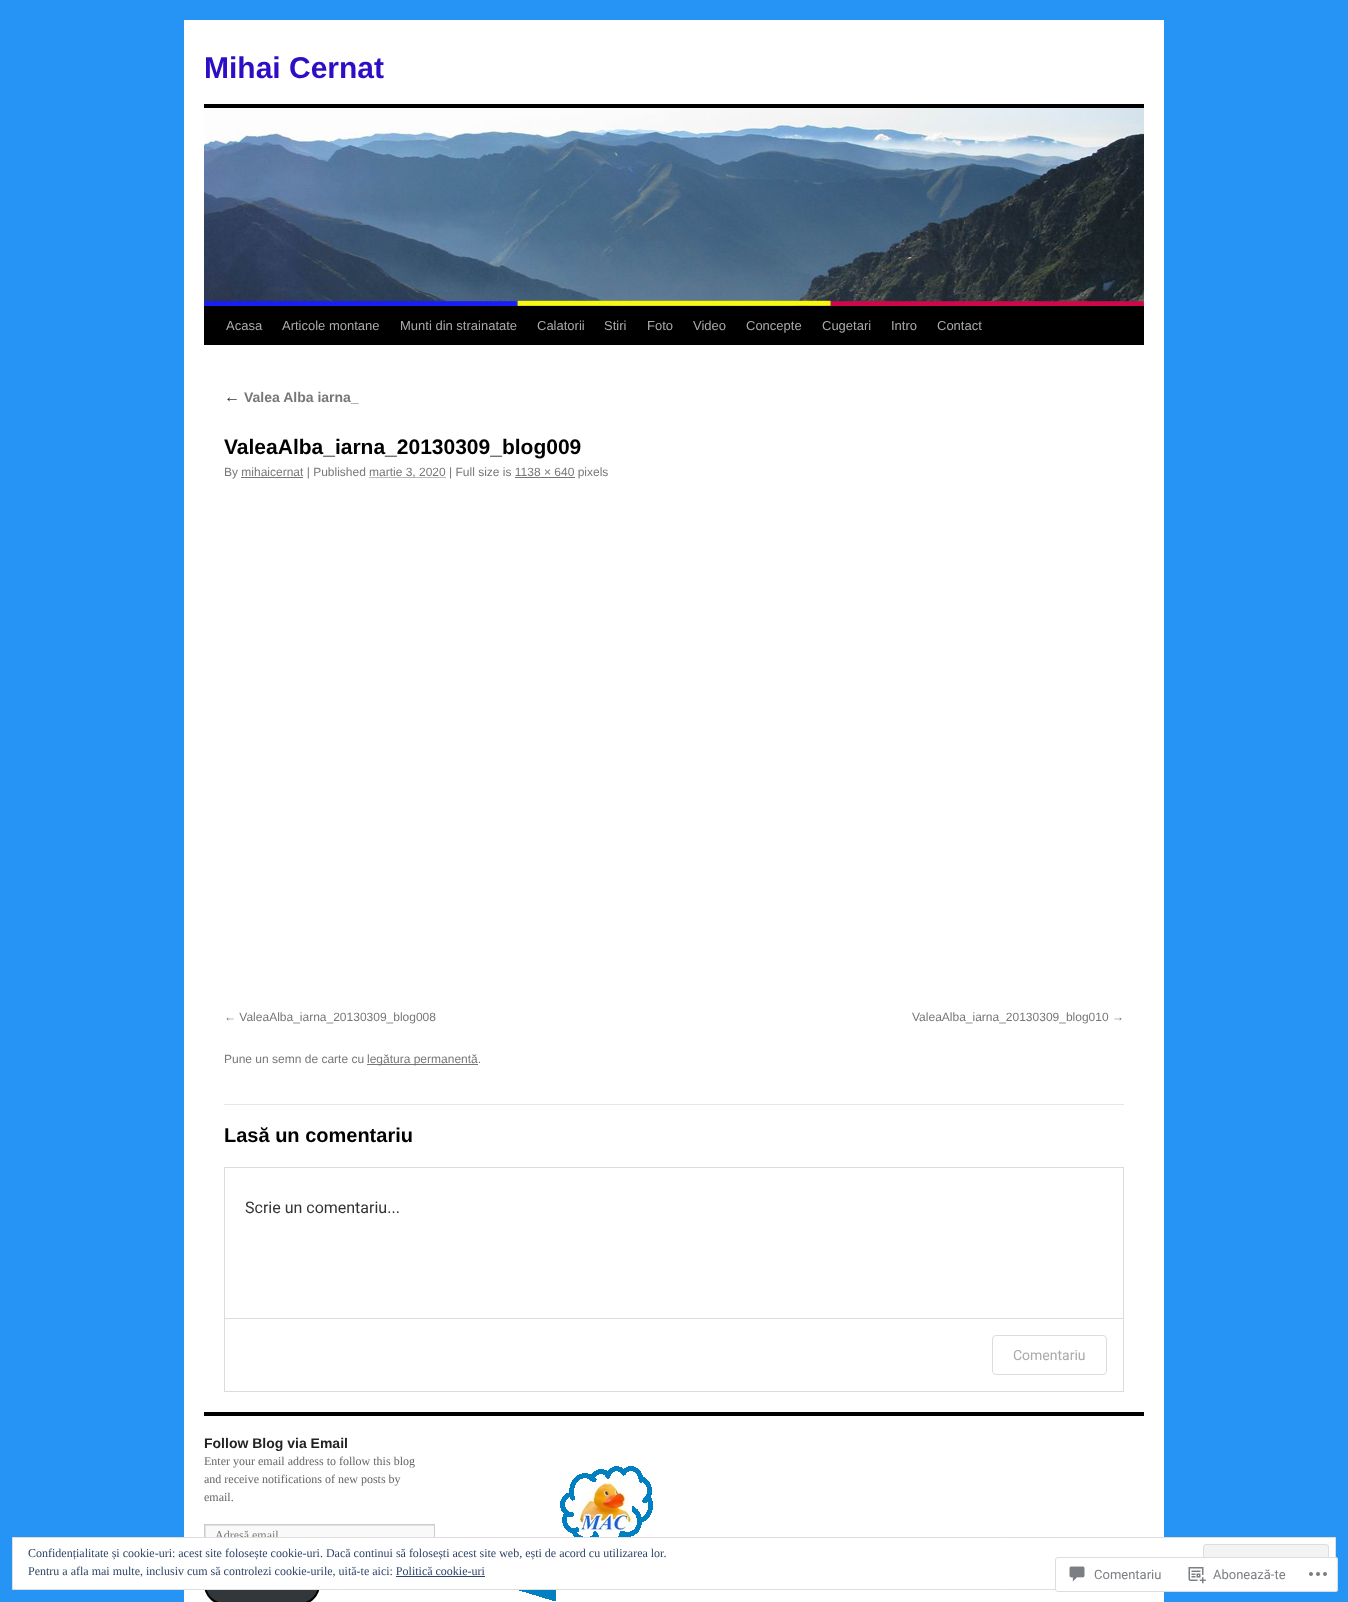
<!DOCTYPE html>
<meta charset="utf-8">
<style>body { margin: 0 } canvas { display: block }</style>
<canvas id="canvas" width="1348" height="1602"></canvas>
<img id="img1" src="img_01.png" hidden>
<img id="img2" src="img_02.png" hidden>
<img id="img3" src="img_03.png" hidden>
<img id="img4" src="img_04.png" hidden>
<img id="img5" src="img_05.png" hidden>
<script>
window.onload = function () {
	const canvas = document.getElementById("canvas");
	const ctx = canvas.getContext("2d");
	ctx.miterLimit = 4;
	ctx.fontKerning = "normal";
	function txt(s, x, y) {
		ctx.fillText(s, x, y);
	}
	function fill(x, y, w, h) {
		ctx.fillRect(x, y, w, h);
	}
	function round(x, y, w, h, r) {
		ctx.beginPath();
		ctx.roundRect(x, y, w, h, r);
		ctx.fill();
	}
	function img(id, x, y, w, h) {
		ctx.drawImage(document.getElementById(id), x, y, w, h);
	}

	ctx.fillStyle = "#2594F4";
	fill(0, 0, 1348, 1602);
	ctx.fillStyle = "#FFFFFF";
	fill(184, 20, 980, 1582);
	ctx.fillStyle = "#000000";
	fill(204, 104, 940, 4);
	fill(204, 306, 940, 39);
	img("img1", 204, 108, 940, 198);
	ctx.beginPath();
	ctx.moveTo(369.5, 477.5);
	ctx.lineTo(446, 477.5);
	ctx.strokeStyle = "#777777";
	ctx.setLineDash([1, 1]);
	ctx.stroke();
	ctx.fillStyle = "#777777";
	fill(241, 477, 62, 1);
	fill(515, 477, 60, 1);
	fill(367, 1064, 111, 1);
	ctx.fillStyle = "#E7E7E7";
	fill(224, 1104, 900, 1);
	ctx.strokeStyle = "#DCDCDE";
	ctx.setLineDash([]);
	ctx.strokeRect(224.5, 1167.5, 899, 224);
	ctx.fillStyle = "#DCDCDE";
	fill(225, 1318, 898, 1);
	ctx.beginPath();
	ctx.roundRect(992.5, 1335.5, 114, 39, 3.5);
	ctx.stroke();
	ctx.fillStyle = "#000000";
	fill(204, 1412, 940, 4);
	ctx.fillStyle = "#F9F9F9";
	fill(206, 1526, 228, 11);
	ctx.save();
	ctx.beginPath();
	ctx.rect(205, 1525, 229, 20);
	ctx.clip();
	ctx.fillStyle = "#E0E0E0";
	ctx.beginPath();
	ctx.moveTo(106, 1426);
	ctx.lineTo(533, 1426);
	ctx.lineTo(533, 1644);
	ctx.lineTo(106, 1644);
	ctx.closePath();
	ctx.moveTo(206, 1526);
	ctx.lineTo(435, 1526);
	ctx.lineTo(435, 1546);
	ctx.lineTo(206, 1546);
	ctx.closePath();
	ctx.fill("evenodd");
	ctx.restore();
	ctx.strokeStyle = "#CCCCCC";
	ctx.strokeRect(204.5, 1524.5, 230, 21);
	ctx.fillStyle = "#32373C";
	ctx.beginPath();
	ctx.roundRect(205, 1565, 114, 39, 19.5);
	ctx.fill();
	ctx.strokeStyle = "#000000";
	ctx.lineWidth = 2;
	ctx.stroke();
	img("img2", 455, 1466, 198, 135);
	ctx.font = "bold 30px Liberation Sans";
	ctx.fillStyle = "#2E0DC5";
	txt("Mihai Cernat", 204, 78);
	ctx.font = "13px Liberation Sans";
	ctx.fillStyle = "#AAAAAA";
	txt("Acasa", 226, 330);
	txt("Articole montane", 282, 330);
	txt("Munti din strainatate", 400, 330);
	txt("Calatorii", 537, 330);
	txt("Stiri", 604, 330);
	txt("Foto", 647, 330);
	txt("Video", 693, 330);
	txt("Concepte", 746, 330);
	txt("Cugetari", 822, 330);
	txt("Intro", 891, 330);
	txt("Contact", 937, 330);
	ctx.font = "italic 16px Liberation Serif";
	ctx.fillStyle = "#333333";
	txt("←", 224, 402);
	ctx.font = "bold 14px Liberation Sans";
	ctx.fillStyle = "#777777";
	txt("Valea Alba iarna_", 244, 402);
	ctx.font = "bold 21px Liberation Sans";
	ctx.fillStyle = "#000000";
	txt("ValeaAlba_iarna_20130309_blog009", 224, 454);
	ctx.font = "12px Liberation Sans";
	ctx.fillStyle = "#777777";
	txt("By mihaicernat | Published", 224, 476);
	txt("martie 3, 2020 | Full size is 1138 × 640 pixels", 369, 476);
	txt("← ValeaAlba_iarna_20130309_blog008", 224, 1021);
	txt("ValeaAlba_iarna_20130309_blog010 →", 912, 1021);
	txt("Pune un semn de carte cu", 224, 1063);
	txt("legătura permanentă.", 367, 1063);
	ctx.font = "bold 20px Liberation Sans";
	ctx.fillStyle = "#000000";
	txt("Lasă un comentariu", 224, 1142);
	ctx.font = "16px Roboto";
	ctx.fillStyle = "#333333";
	txt("Scrie un comentariu...", 245, 1213);
	ctx.font = "14px Roboto";
	ctx.fillStyle = "#AAAAAA";
	txt("Comentariu", 1013, 1360);
	ctx.font = "bold 14px Liberation Sans";
	ctx.fillStyle = "#222222";
	txt("Follow Blog via Email", 204, 1448);
	ctx.font = "12px Liberation Serif";
	ctx.fillStyle = "#666666";
	txt("Enter your email address to follow this blog", 204, 1465);
	txt("and receive notifications of new posts by", 204, 1483);
	txt("email.", 204, 1501);
	ctx.fillStyle = "#777777";
	txt("Adresă email", 215, 1539);
	ctx.fillStyle = "#FFFFFF";
	ctx.beginPath();
	ctx.rect(12.5, 1537.5, 1323, 52);
	ctx.fill();
	ctx.strokeStyle = "#DEDEDE";
	ctx.lineWidth = 1;
	ctx.stroke();
	ctx.fillStyle = "#2E4467";
	txt("Confidențialitate și cookie-uri: acest site folosește cookie-uri. Dacă continui să folosești acest site web, ești de acord cu utilizarea lor.", 28, 1557);
	ctx.fillStyle = "#F3F3F3";
	ctx.beginPath();
	ctx.roundRect(1203.5, 1544.5, 125, 38, 2.5);
	ctx.fill();
	ctx.stroke();
	ctx.fillStyle = "#2E4467";
	txt("Pentru a afla mai multe, inclusiv cum să controlezi cookie-urile, uită-te aici: Politică cookie-uri", 28, 1575);
	fill(396, 1576, 89, 1);
	ctx.fillStyle = "rgba(255, 255, 255, 0.98)";
	round(1055, 1557, 283, 35, 3);
	ctx.beginPath();
	ctx.roundRect(1055.5, 1557.5, 282, 34, 2.5);
	ctx.strokeStyle = "rgba(220, 220, 222, 0.98)";
	ctx.stroke();
	img("img3", 1069, 1566, 16, 16);
	ctx.font = "13px Roboto";
	ctx.fillStyle = "#7B7F85";
	txt("Comentariu", 1094, 1579);
	img("img4", 1188, 1567, 18, 17);
	txt("Abonează-te", 1213, 1579);
	img("img5", 1309, 1572, 18, 4);
};
</script>
